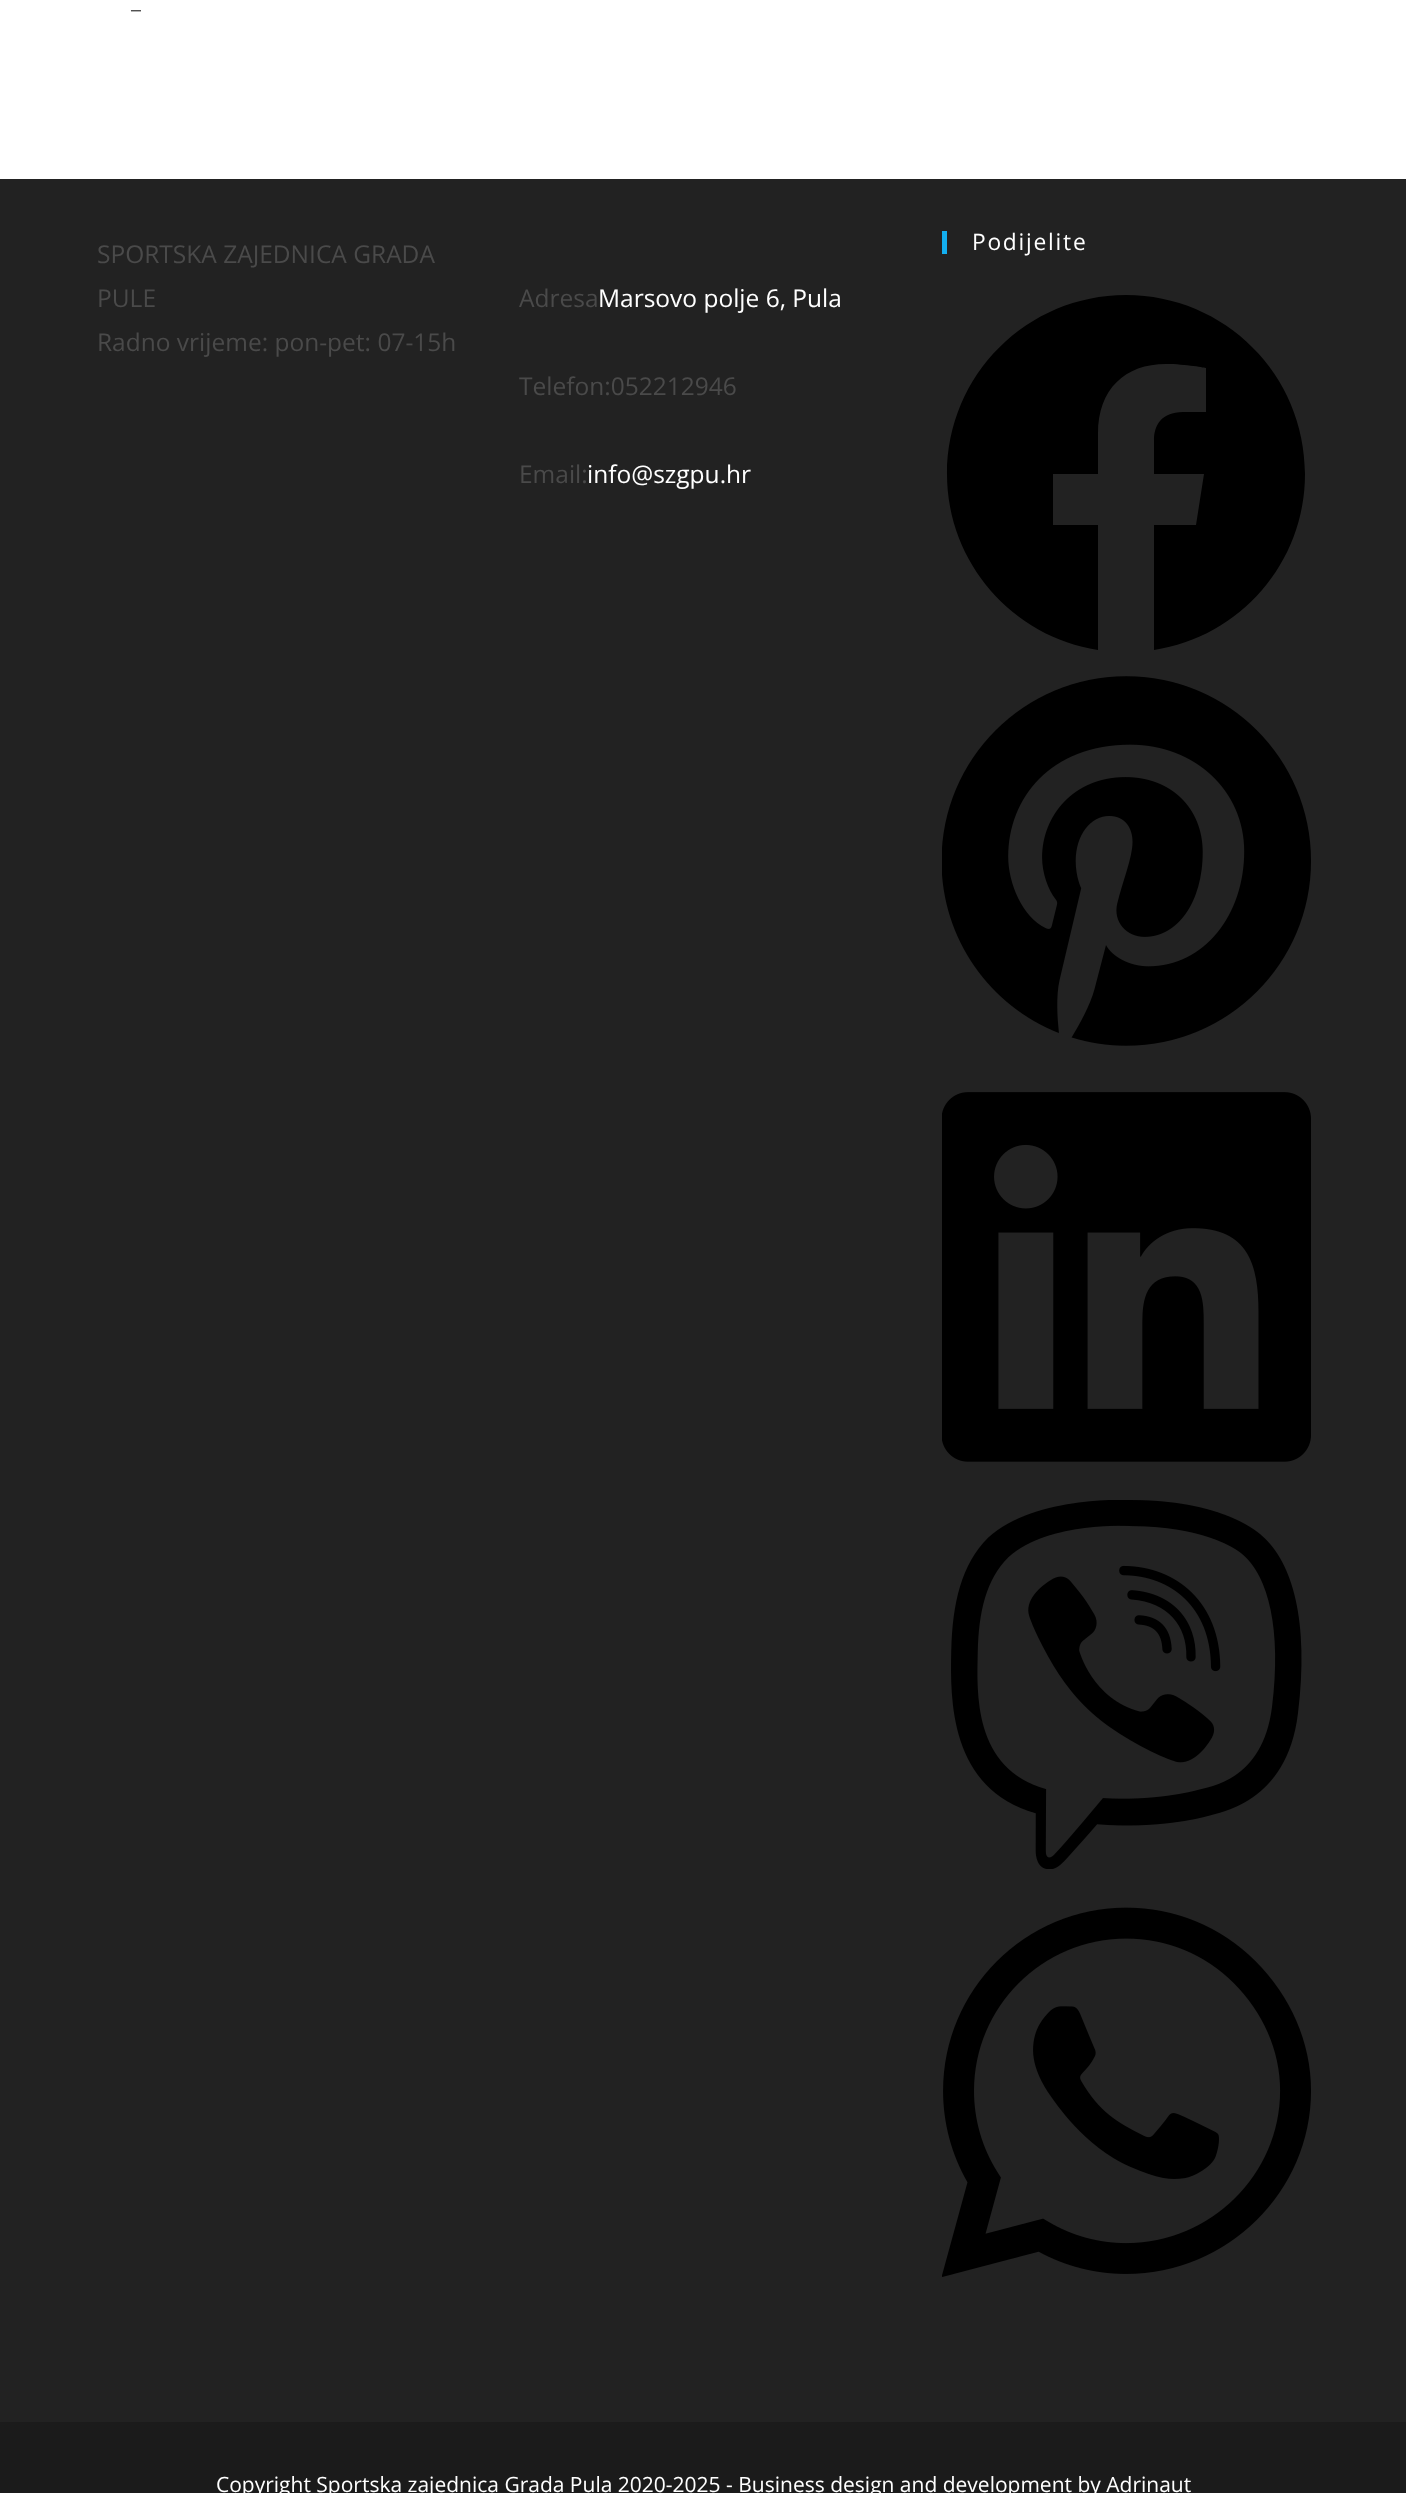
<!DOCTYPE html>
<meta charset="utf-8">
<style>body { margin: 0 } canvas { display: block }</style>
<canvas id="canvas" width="1406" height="2493"></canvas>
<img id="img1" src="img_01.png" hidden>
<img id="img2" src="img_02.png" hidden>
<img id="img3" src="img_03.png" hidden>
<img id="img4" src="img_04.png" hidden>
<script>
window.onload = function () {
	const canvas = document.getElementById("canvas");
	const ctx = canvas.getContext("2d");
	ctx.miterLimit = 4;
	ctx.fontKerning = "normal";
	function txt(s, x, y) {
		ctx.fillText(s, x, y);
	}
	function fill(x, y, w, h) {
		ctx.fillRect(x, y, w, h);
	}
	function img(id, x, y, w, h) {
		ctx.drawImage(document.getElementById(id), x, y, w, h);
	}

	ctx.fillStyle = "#222222";
	fill(0, 0, 1406, 2493);
	ctx.fillStyle = "#FFFFFF";
	fill(0, 0, 1406, 179);
	ctx.fillStyle = "#13AFF0";
	fill(942, 231, 5, 23);
	ctx.fillStyle = "#000000";
	ctx.beginPath();
	ctx.moveTo(1305, 474);
	ctx.bezierCurveTo(1305, 375, 1225, 295, 1126, 295);
	ctx.bezierCurveTo(1027, 295, 947, 375, 947, 474);
	ctx.bezierCurveTo(947, 563, 1013, 637, 1098, 650);
	ctx.lineTo(1098, 525);
	ctx.lineTo(1053, 525);
	ctx.lineTo(1053, 474);
	ctx.lineTo(1098, 474);
	ctx.lineTo(1098, 434);
	ctx.bezierCurveTo(1098, 389, 1125, 364, 1166, 364);
	ctx.bezierCurveTo(1186, 364, 1206, 368, 1206, 368);
	ctx.lineTo(1206, 412);
	ctx.lineTo(1183, 412);
	ctx.bezierCurveTo(1161, 412, 1154, 426, 1154, 440);
	ctx.lineTo(1154, 474);
	ctx.lineTo(1204, 474);
	ctx.lineTo(1196, 525);
	ctx.lineTo(1154, 525);
	ctx.lineTo(1154, 650);
	ctx.bezierCurveTo(1240, 637, 1305, 563, 1305, 474);
	ctx.closePath();
	ctx.fill();
	img("img1", 942, 676, 369, 370);
	img("img2", 942, 1092, 369, 370);
	img("img3", 951, 1500, 351, 369);
	img("img4", 942, 1907, 369, 370);
	ctx.fillStyle = "#1B1B1B";
	fill(0, 2422, 1406, 71);
	ctx.font = "22.75px Open Sans";
	ctx.fillStyle = "#4A4A4A";
	txt("_", 131, 8);
	ctx.font = "24.5px Open Sans";
	txt("SPORTSKA ZAJEDNICA GRADA", 97, 263);
	txt("PULE", 97, 307);
	txt("Radno vrijeme: pon-pet: 07-15h", 97, 351);
	txt("Adresa", 519, 307);
	ctx.fillStyle = "#FFFFFF";
	txt("Marsovo polje 6, Pula", 598, 307);
	ctx.fillStyle = "#4A4A4A";
	txt("Telefon:052212946", 519, 395);
	txt("Email:", 519, 483);
	ctx.fillStyle = "#FFFFFF";
	txt("info@szgpu.hr", 587, 483);
	ctx.letterSpacing = "1.75px";
	ctx.font = "22.75px Open Sans";
	txt("Podijelite", 972, 250);
	ctx.letterSpacing = "0px";
	ctx.font = "21px Open Sans";
	txt("Copyright Sportska zajednica Grada Pula 2020-2025 - Business design and development by Adrinaut", 216, 2492);
};
</script>
